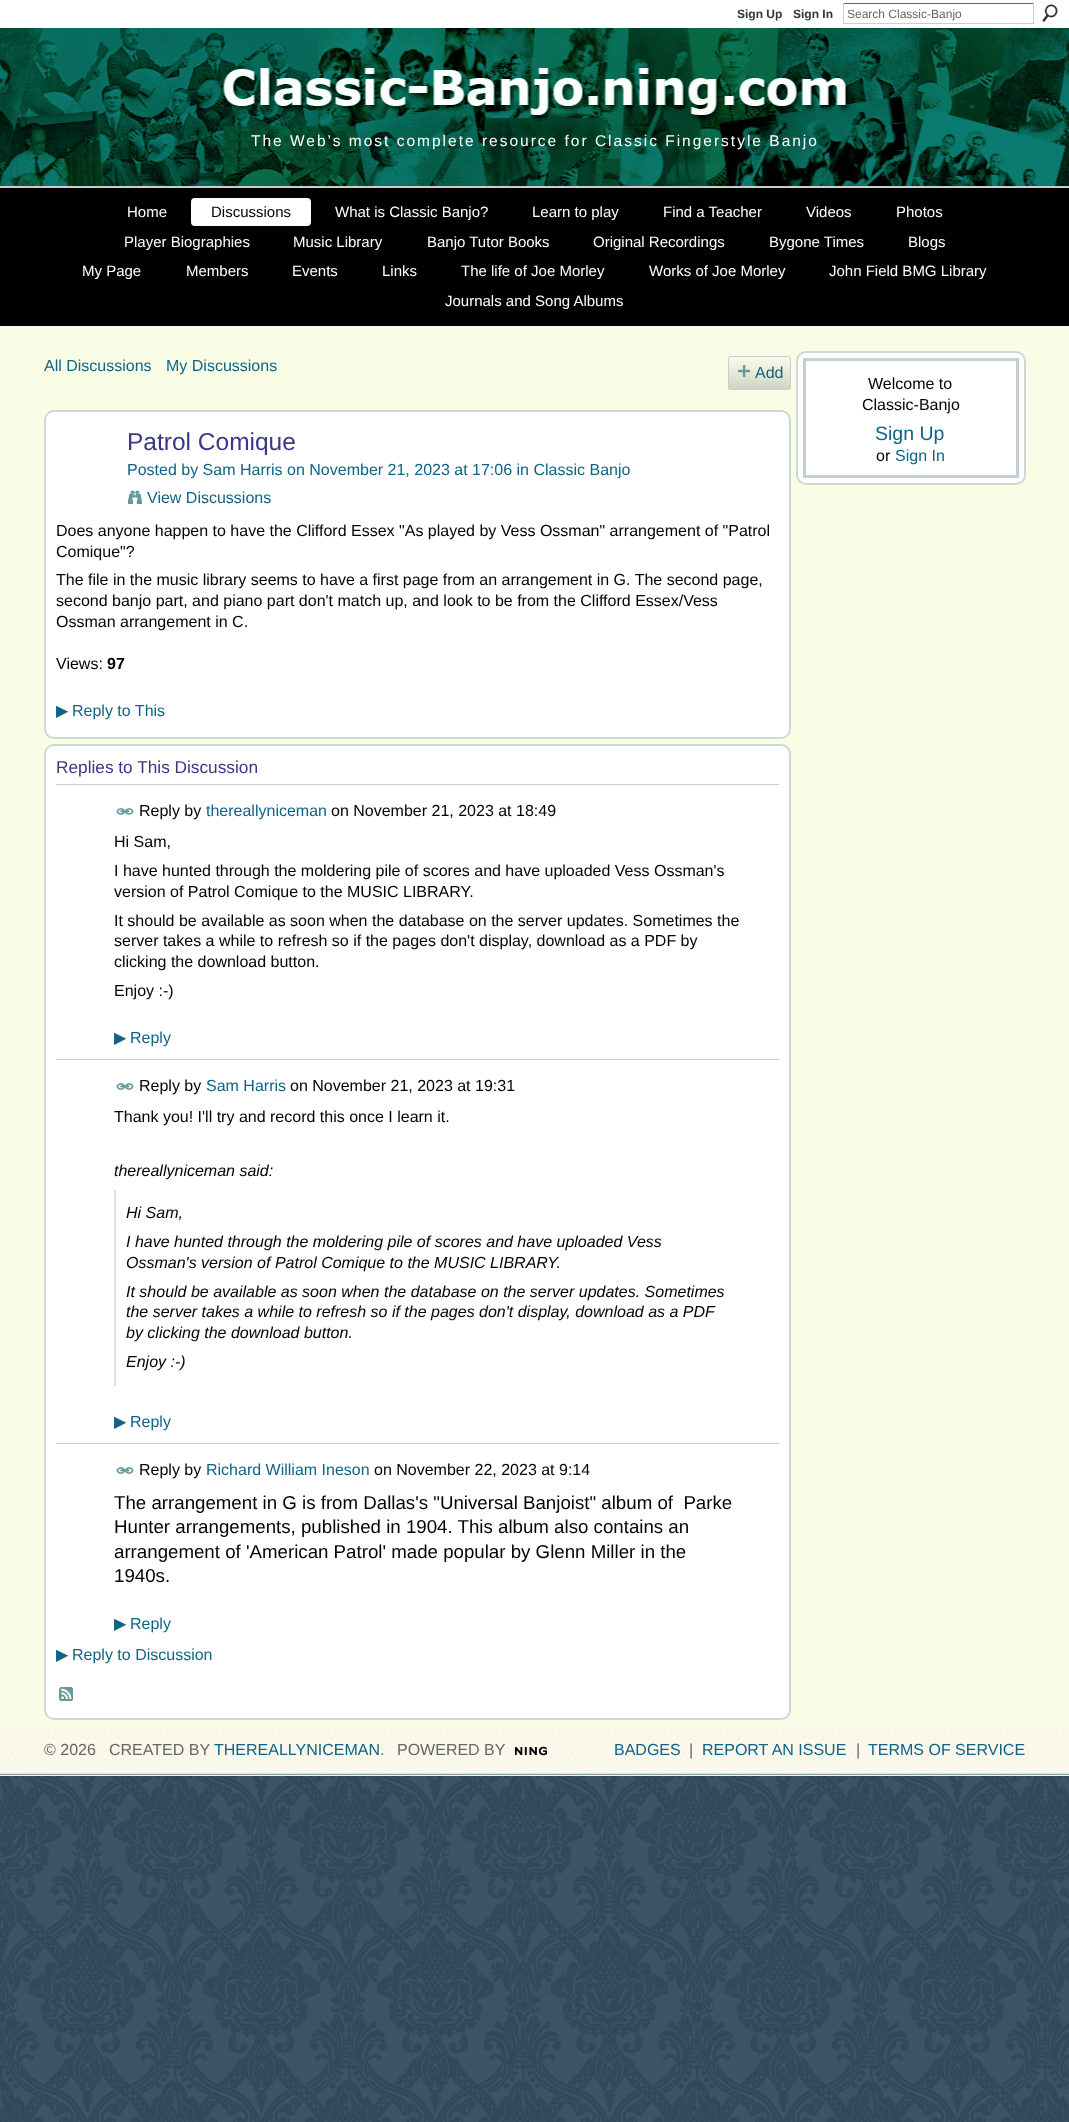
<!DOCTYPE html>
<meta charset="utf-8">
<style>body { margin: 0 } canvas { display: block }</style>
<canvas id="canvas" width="1069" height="2122"></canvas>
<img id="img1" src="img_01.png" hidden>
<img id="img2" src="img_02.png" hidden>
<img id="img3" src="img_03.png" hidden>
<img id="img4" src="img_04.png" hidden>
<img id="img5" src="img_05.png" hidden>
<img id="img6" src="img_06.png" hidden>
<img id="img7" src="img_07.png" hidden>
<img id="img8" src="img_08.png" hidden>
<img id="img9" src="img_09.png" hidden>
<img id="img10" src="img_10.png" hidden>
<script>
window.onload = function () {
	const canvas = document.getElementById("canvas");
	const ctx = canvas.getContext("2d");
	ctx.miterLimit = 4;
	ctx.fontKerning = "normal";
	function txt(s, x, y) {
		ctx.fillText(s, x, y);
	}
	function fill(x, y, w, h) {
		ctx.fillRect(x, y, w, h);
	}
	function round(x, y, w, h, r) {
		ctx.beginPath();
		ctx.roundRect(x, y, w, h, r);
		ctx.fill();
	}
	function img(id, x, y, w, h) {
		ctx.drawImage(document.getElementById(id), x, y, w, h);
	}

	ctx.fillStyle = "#3A586B";
	fill(0, 0, 1069, 2122);
	img("img1", 0, 1776, 1069, 346);
	ctx.fillStyle = "#FFFFFF";
	fill(0, 0, 1069, 28);
	ctx.fillStyle = "#666666";
	fill(843, 3, 191, 1);
	ctx.fillStyle = "#CCCCCC";
	fill(1033, 3, 1, 21);
	fill(843, 23, 191, 1);
	fill(843, 3, 1, 21);
	img("img2", 1042, 4, 16, 18);
	img("img3", 0, 28, 1069, 158);
	ctx.fillStyle = "#000000";
	fill(0, 188, 1069, 138);
	ctx.fillStyle = "#CCCCCC";
	fill(0, 186, 1069, 2);
	ctx.fillStyle = "#FFFFFF";
	round(191, 198, 120, 28, 4);
	ctx.fillStyle = "#F9FDE6";
	fill(0, 326, 1069, 1399);
	img("img4", 728, 359, 63, 31);
	ctx.beginPath();
	ctx.roundRect(728.5, 356.5, 62, 33, 2.5);
	ctx.strokeStyle = "#C4D0D5";
	ctx.stroke();
	img("img5", 738, 365, 12, 12);
	ctx.fillStyle = "#FFFFFF";
	ctx.beginPath();
	ctx.roundRect(45, 411, 745, 327, 9);
	ctx.fill();
	ctx.strokeStyle = "#CDD9D3";
	ctx.lineWidth = 2;
	ctx.stroke();
	img("img6", 128, 490, 14, 14);
	ctx.beginPath();
	ctx.roundRect(45, 745, 745, 974, 9);
	ctx.fill();
	ctx.stroke();
	ctx.fillStyle = "#C4D0D5";
	fill(56, 784, 723, 1);
	img("img7", 116, 808, 18, 7);
	fill(56, 1059, 723, 1);
	img("img7", 116, 1083, 18, 7);
	ctx.fillStyle = "#E1E1E1";
	fill(114, 1190, 2, 196);
	ctx.fillStyle = "#C4D0D5";
	fill(56, 1443, 723, 1);
	img("img7", 116, 1467, 18, 7);
	img("img8", 59, 1687, 14, 14);
	ctx.fillStyle = "#FFFFFF";
	ctx.beginPath();
	ctx.roundRect(797, 352, 228, 132, 9);
	ctx.fill();
	ctx.stroke();
	ctx.strokeStyle = "#C4D0D5";
	ctx.lineWidth = 3;
	ctx.strokeRect(804.5, 359.5, 213, 117);
	img("img9", 0, 1725, 1069, 51);
	img("img10", 515, 1746, 32, 10);
	ctx.font = "bold 12px Liberation Sans";
	ctx.fillStyle = "#333333";
	txt("Sign Up", 737, 18);
	txt("Sign In", 793, 18);
	ctx.font = "12px Liberation Sans";
	ctx.fillStyle = "#666666";
	txt("Search Classic-Banjo", 847, 18);
	ctx.letterSpacing = "2px";
	ctx.font = "15.5px Liberation Sans";
	ctx.fillStyle = "#FFFFFF";
	txt("The Web’s most complete resource for Classic Fingerstyle Banjo", 251, 146);
	ctx.letterSpacing = "0px";
	ctx.font = "15px Liberation Sans";
	txt("Home", 127, 217);
	ctx.fillStyle = "#000000";
	txt("Discussions", 211, 217);
	ctx.fillStyle = "#FFFFFF";
	txt("What is Classic Banjo?", 335, 217);
	txt("Learn to play", 532, 217);
	txt("Find a Teacher", 663, 217);
	txt("Videos", 806, 217);
	txt("Photos", 896, 217);
	txt("Player Biographies", 124, 247);
	txt("Music Library", 293, 247);
	txt("Banjo Tutor Books", 427, 247);
	txt("Original Recordings", 593, 247);
	txt("Bygone Times", 769, 247);
	txt("Blogs", 908, 247);
	txt("My Page", 82, 276);
	txt("Members", 186, 276);
	txt("Events", 292, 276);
	txt("Links", 382, 276);
	txt("The life of Joe Morley", 461, 276);
	txt("Works of Joe Morley", 649, 276);
	txt("John Field BMG Library", 829, 276);
	txt("Journals and Song Albums", 445, 306);
	ctx.font = "16px Liberation Sans";
	ctx.fillStyle = "#0F6387";
	txt("All Discussions", 44, 371);
	txt("My Discussions", 166, 371);
	txt("Add", 755, 378);
	ctx.font = "24.5px Liberation Sans";
	ctx.fillStyle = "#383885";
	txt("Patrol Comique", 127, 450);
	ctx.font = "16px Liberation Sans";
	ctx.fillStyle = "#0F6387";
	txt("Posted by Sam Harris on November 21, 2023 at 17:06 in Classic Banjo", 127, 475);
	txt("View Discussions", 147, 503);
	ctx.fillStyle = "#01010A";
	txt("Does anyone happen to have the Clifford Essex \"As played by Vess Ossman\" arrangement of \"Patrol", 56, 536);
	txt("Comique\"?", 56, 557);
	txt("The file in the music library seems to have a first page from an arrangement in G. The second page,", 56, 585);
	txt("second banjo part, and piano part don't match up, and look to be from the Clifford Essex/Vess", 56, 606);
	txt("Ossman arrangement in C.", 56, 627);
	txt("Views:", 56, 669);
	ctx.font = "bold 16px Liberation Sans";
	txt("97", 107, 669);
	ctx.font = "16px DejaVu Sans";
	ctx.fillStyle = "#0F6387";
	txt("▶", 56, 716);
	ctx.font = "16px Liberation Sans";
	txt("Reply to This", 72, 716);
	ctx.font = "17.25px Liberation Sans";
	ctx.fillStyle = "#383885";
	txt("Replies to This Discussion", 56, 773);
	ctx.font = "16px Liberation Sans";
	ctx.fillStyle = "#01010A";
	txt("Reply by", 139, 816);
	ctx.fillStyle = "#0F6387";
	txt("thereallyniceman", 206, 816);
	ctx.fillStyle = "#01010A";
	txt("on November 21, 2023 at 18:49", 331, 816);
	txt("Hi Sam,", 114, 847);
	txt("I have hunted through the moldering pile of scores and have uploaded Vess Ossman's", 114, 876);
	txt("version of Patrol Comique to the MUSIC LIBRARY.", 114, 897);
	txt("It should be available as soon when the database on the server updates. Sometimes the", 114, 926);
	txt("server takes a while to refresh so if the pages don't display, download as a PDF by", 114, 946);
	txt("clicking the download button.", 114, 967);
	txt("Enjoy :-)", 114, 996);
	ctx.font = "16px DejaVu Sans";
	ctx.fillStyle = "#0F6387";
	txt("▶", 114, 1043);
	ctx.font = "16px Liberation Sans";
	txt("Reply", 130, 1043);
	ctx.fillStyle = "#01010A";
	txt("Reply by", 139, 1091);
	ctx.fillStyle = "#0F6387";
	txt("Sam Harris", 206, 1091);
	ctx.fillStyle = "#01010A";
	txt("on November 21, 2023 at 19:31", 290, 1091);
	txt("Thank you! I'll try and record this once I learn it.", 114, 1122);
	ctx.font = "italic 16px Liberation Sans";
	txt("thereallyniceman said:", 114, 1176);
	txt("Hi Sam,", 126, 1218);
	txt("I have hunted through the moldering pile of scores and have uploaded Vess", 126, 1247);
	txt("Ossman's version of Patrol Comique to the MUSIC LIBRARY.", 126, 1268);
	txt("It should be available as soon when the database on the server updates. Sometimes", 126, 1297);
	txt("the server takes a while to refresh so if the pages don't display, download as a PDF", 126, 1317);
	txt("by clicking the download button.", 126, 1338);
	txt("Enjoy :-)", 126, 1367);
	ctx.font = "16px DejaVu Sans";
	ctx.fillStyle = "#0F6387";
	txt("▶", 114, 1427);
	ctx.font = "16px Liberation Sans";
	txt("Reply", 130, 1427);
	ctx.fillStyle = "#01010A";
	txt("Reply by", 139, 1475);
	ctx.fillStyle = "#0F6387";
	txt("Richard William Ineson", 206, 1475);
	ctx.fillStyle = "#01010A";
	txt("on November 22, 2023 at 9:14", 374, 1475);
	ctx.font = "18.7px Liberation Sans";
	txt("The arrangement in G is from Dallas's \"Universal Banjoist\" album of  Parke", 114, 1509);
	txt("Hunter arrangements, published in 1904. This album also contains an", 114, 1533);
	txt("arrangement of 'American Patrol' made popular by Glenn Miller in the", 114, 1558);
	txt("1940s.", 114, 1582);
	ctx.font = "16px DejaVu Sans";
	ctx.fillStyle = "#0F6387";
	txt("▶", 114, 1629);
	ctx.font = "16px Liberation Sans";
	txt("Reply", 130, 1629);
	ctx.font = "16px DejaVu Sans";
	txt("▶", 56, 1660);
	ctx.font = "16px Liberation Sans";
	txt("Reply to Discussion", 72, 1660);
	ctx.fillStyle = "#01010A";
	txt("Welcome to", 868, 389);
	txt("Classic-Banjo", 862, 410);
	ctx.font = "19.5px Liberation Sans";
	ctx.fillStyle = "#0F6387";
	txt("Sign Up", 875, 440);
	ctx.font = "16px Liberation Sans";
	ctx.fillStyle = "#01010A";
	txt("or", 876, 461);
	ctx.fillStyle = "#0F6387";
	txt("Sign In", 895, 461);
	ctx.fillStyle = "#666666";
	txt("© 2026", 44, 1755);
	txt("CREATED BY", 109, 1755);
	ctx.fillStyle = "#0F6387";
	txt("THEREALLYNICEMAN", 214, 1755);
	ctx.fillStyle = "#666666";
	txt(".", 380, 1755);
	txt("POWERED BY", 397, 1755);
	ctx.fillStyle = "#0F6387";
	txt("BADGES", 614, 1755);
	ctx.fillStyle = "#666666";
	txt("|", 689, 1755);
	ctx.fillStyle = "#0F6387";
	txt("REPORT AN ISSUE", 702, 1755);
	ctx.fillStyle = "#666666";
	txt("|", 856, 1755);
	ctx.fillStyle = "#0F6387";
	txt("TERMS OF SERVICE", 868, 1755);
};
</script>
